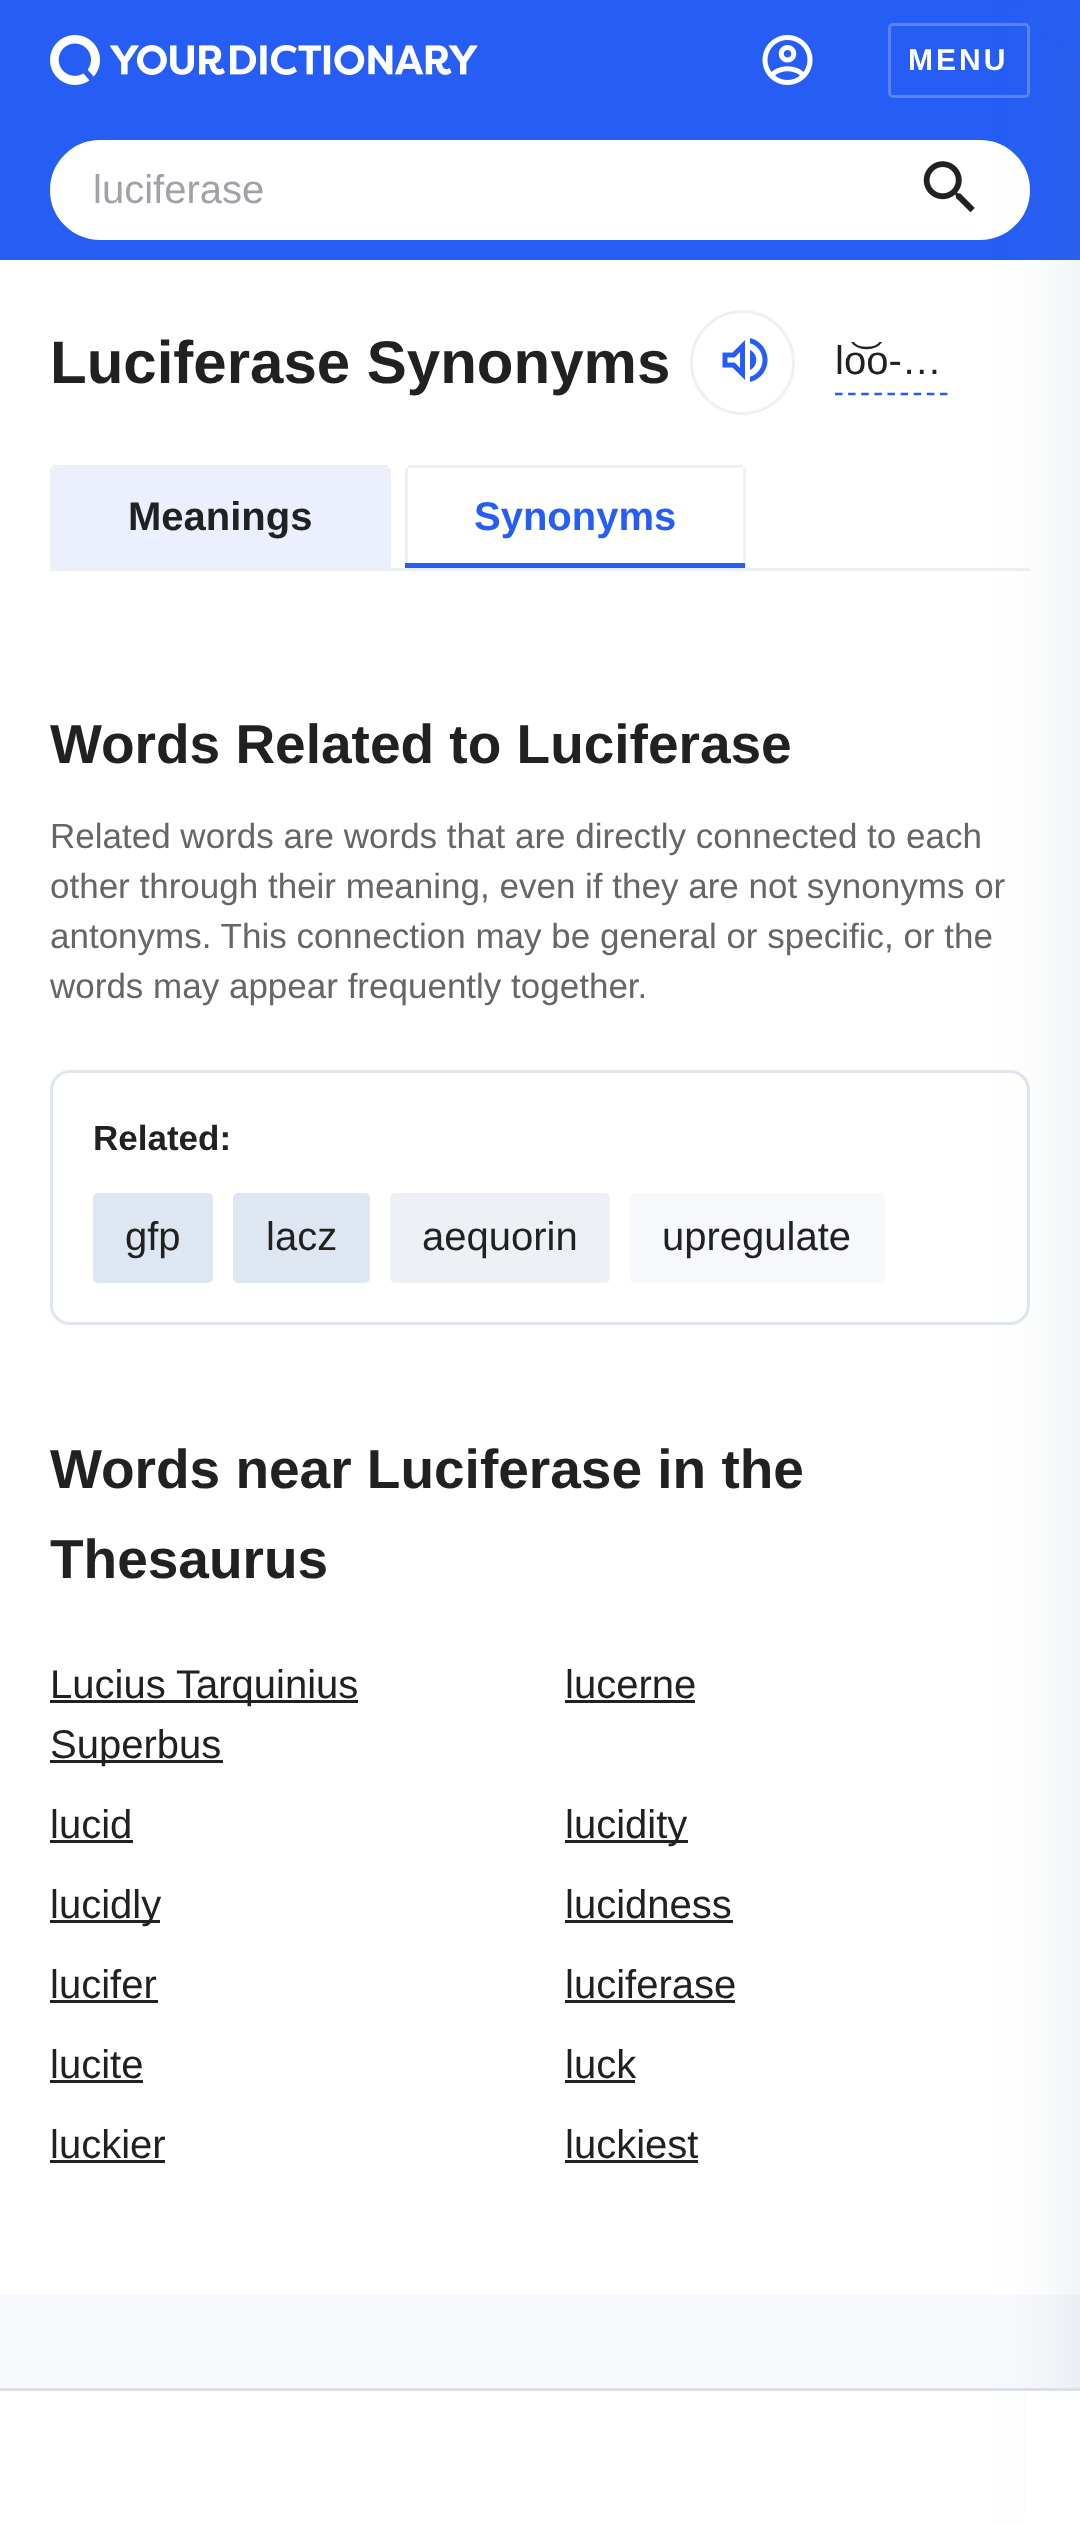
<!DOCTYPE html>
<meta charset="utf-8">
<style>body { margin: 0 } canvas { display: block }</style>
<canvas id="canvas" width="1080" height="2525"></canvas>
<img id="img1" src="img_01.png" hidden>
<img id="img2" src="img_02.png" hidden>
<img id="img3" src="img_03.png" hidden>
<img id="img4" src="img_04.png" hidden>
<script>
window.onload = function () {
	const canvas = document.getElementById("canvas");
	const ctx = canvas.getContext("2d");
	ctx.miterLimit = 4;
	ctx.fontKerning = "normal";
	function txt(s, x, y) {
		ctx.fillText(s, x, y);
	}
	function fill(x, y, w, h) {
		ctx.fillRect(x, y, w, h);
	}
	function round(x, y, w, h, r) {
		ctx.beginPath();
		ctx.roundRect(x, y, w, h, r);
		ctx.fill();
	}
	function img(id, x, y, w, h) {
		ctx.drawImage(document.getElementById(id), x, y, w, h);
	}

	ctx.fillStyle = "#FFFFFF";
	fill(0, 0, 1080, 2525);
	ctx.fillStyle = "#265EF5";
	fill(0, 0, 1080, 260);
	img("img1", 50, 35, 428, 50);
	img("img2", 762, 35, 51, 50);
	ctx.beginPath();
	ctx.roundRect(889.5, 24.5, 139, 72, 3.5);
	ctx.strokeStyle = "#5983EE";
	ctx.lineWidth = 3;
	ctx.stroke();
	ctx.fillStyle = "#FFFFFF";
	ctx.beginPath();
	ctx.roundRect(52.5, 142.5, 975, 95, 47.5);
	ctx.fill();
	ctx.strokeStyle = "#FFFFFF";
	ctx.lineWidth = 5;
	ctx.stroke();
	img("img3", 923, 161, 52, 52);
	ctx.fillStyle = "#EDF1F6";
	fill(50, 568, 980, 3);
	ctx.beginPath();
	ctx.roundRect(51.5, 1071.5, 977, 252, 18.5);
	ctx.strokeStyle = "#DFE6EF";
	ctx.lineWidth = 3;
	ctx.stroke();
	ctx.fillStyle = "#F8F9FD";
	fill(0, 2295, 1080, 93);
	ctx.fillStyle = "rgba(84, 110, 122, 0.12)";
	ctx.filter = "blur(37.5px)";
	ctx.beginPath();
	ctx.rect(1068, 3, 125, 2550);
	ctx.fill();
	ctx.filter = "none";
	ctx.beginPath();
	ctx.arc(742.5, 362.5, 51, 0, Math.PI * 2);
	ctx.strokeStyle = "#EDF1F6";
	ctx.stroke();
	img("img4", 722, 338, 46, 44);
	ctx.beginPath();
	ctx.moveTo(835, 394);
	ctx.lineTo(947.5, 394);
	ctx.strokeStyle = "#265EF5";
	ctx.lineWidth = 2.5;
	ctx.setLineDash([7.5, 5.62]);
	ctx.stroke();
	ctx.fillStyle = "#ECF0FE";
	ctx.beginPath();
	ctx.roundRect(53, 468, 335, 100, [2.5, 2.5, 0, 0]);
	ctx.fill();
	ctx.fillStyle = "#EDF1F6";
	fill(53, 465, 335, 3);
	fill(388, 468, 3, 100);
	fill(50, 468, 3, 100);
	fill(408, 465, 335, 3);
	fill(743, 468, 3, 100);
	fill(405, 468, 3, 100);
	ctx.fillStyle = "#265EF5";
	fill(405, 563, 340, 5);
	ctx.fillStyle = "#DEE7F1";
	ctx.beginPath();
	ctx.roundRect(94.5, 1194.5, 117, 87, 3.5);
	ctx.fill();
	ctx.strokeStyle = "#DEE7F1";
	ctx.lineWidth = 3;
	ctx.setLineDash([]);
	ctx.stroke();
	ctx.beginPath();
	ctx.roundRect(234.5, 1194.5, 134, 87, 3.5);
	ctx.fill();
	ctx.stroke();
	ctx.fillStyle = "#EDF1F6";
	ctx.beginPath();
	ctx.roundRect(391.5, 1194.5, 217, 87, 3.5);
	ctx.fill();
	ctx.strokeStyle = "#EDF1F6";
	ctx.stroke();
	ctx.fillStyle = "#F6F8FB";
	round(630, 1193, 255, 90, 5);
	ctx.fillStyle = "#212121";
	fill(50, 1700, 308, 3);
	fill(50, 1760, 173, 3);
	fill(565, 1700, 130, 3);
	fill(50, 1840, 83, 3);
	fill(565, 1840, 123, 3);
	fill(50, 1920, 110, 3);
	fill(565, 1920, 168, 3);
	fill(50, 2000, 108, 3);
	fill(565, 2000, 170, 3);
	fill(50, 2080, 93, 3);
	fill(565, 2080, 70, 3);
	fill(50, 2160, 115, 3);
	fill(565, 2160, 133, 3);
	ctx.fillStyle = "#FFFFFF";
	fill(1025, 2391, 55, 134);
	ctx.fillStyle = "#DAE0E3";
	fill(0, 2388, 1080, 3);
	ctx.letterSpacing = "3px";
	ctx.font = "bold 30px Liberation Sans";
	ctx.fillStyle = "#FFFFFF";
	txt("MENU", 908, 70);
	ctx.letterSpacing = "0px";
	ctx.font = "40px Liberation Sans";
	ctx.fillStyle = "#A1A1AA";
	txt("luciferase", 93, 203);
	ctx.font = "bold 60px Liberation Sans";
	ctx.fillStyle = "#212121";
	txt("Luciferase Synonyms", 50, 383);
	ctx.save();
	ctx.beginPath();
	ctx.rect(835, 333, 113, 60);
	ctx.clip();
	ctx.font = "40px Liberation Sans";
	txt("lo͝o-…", 835, 374);
	ctx.restore();
	ctx.font = "bold 40px Liberation Sans";
	txt("Meanings", 128, 530);
	ctx.fillStyle = "#265EF5";
	txt("Synonyms", 474, 530);
	ctx.font = "bold 55px Liberation Sans";
	ctx.fillStyle = "#212121";
	txt("Words Related to Luciferase", 50, 763);
	ctx.font = "35px Liberation Sans";
	ctx.fillStyle = "#666666";
	txt("Related words are words that are directly connected to each", 50, 848);
	txt("other through their meaning, even if they are not synonyms or", 50, 898);
	txt("antonyms. This connection may be general or specific, or the", 50, 948);
	txt("words may appear frequently together.", 50, 998);
	ctx.font = "bold 35px Liberation Sans";
	ctx.fillStyle = "#212121";
	txt("Related:", 93, 1150);
	ctx.font = "40px Liberation Sans";
	txt("gfp", 125, 1250);
	txt("lacz", 266, 1250);
	txt("aequorin", 422, 1250);
	txt("upregulate", 662, 1250);
	ctx.font = "bold 55px Liberation Sans";
	txt("Words near Luciferase in the", 50, 1488);
	txt("Thesaurus", 50, 1578);
	ctx.font = "40px Liberation Sans";
	txt("Lucius Tarquinius", 50, 1698);
	txt("Superbus", 50, 1758);
	txt("lucerne", 565, 1698);
	txt("lucid", 50, 1838);
	txt("lucidity", 565, 1838);
	txt("lucidly", 50, 1918);
	txt("lucidness", 565, 1918);
	txt("lucifer", 50, 1998);
	txt("luciferase", 565, 1998);
	txt("lucite", 50, 2078);
	txt("luck", 565, 2078);
	txt("luckier", 50, 2158);
	txt("luckiest", 565, 2158);
};
</script>
